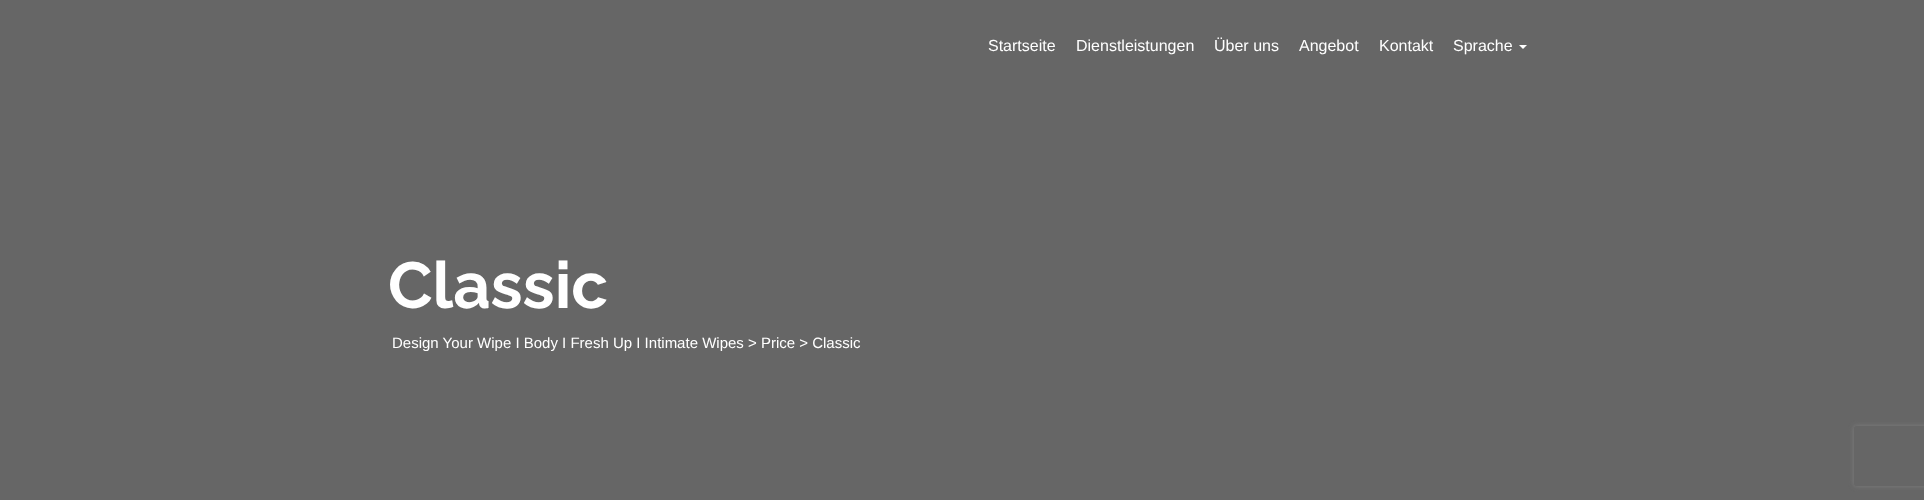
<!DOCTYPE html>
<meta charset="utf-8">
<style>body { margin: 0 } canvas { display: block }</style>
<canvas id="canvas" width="1924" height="500"></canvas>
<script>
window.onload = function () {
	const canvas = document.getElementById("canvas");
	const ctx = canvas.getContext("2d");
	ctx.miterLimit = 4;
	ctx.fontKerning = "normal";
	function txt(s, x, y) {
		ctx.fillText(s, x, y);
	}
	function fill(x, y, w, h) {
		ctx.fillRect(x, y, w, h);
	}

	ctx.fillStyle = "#666666";
	fill(0, 0, 1924, 500);
	ctx.fillStyle = "#FFFFFF";
	ctx.beginPath();
	ctx.moveTo(1519, 45);
	ctx.lineTo(1527, 45);
	ctx.lineTo(1523, 49);
	ctx.closePath();
	ctx.fill();
	ctx.save();
	ctx.beginPath();
	ctx.moveTo(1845, 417);
	ctx.lineTo(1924, 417);
	ctx.lineTo(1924, 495);
	ctx.lineTo(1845, 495);
	ctx.closePath();
	ctx.moveTo(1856, 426);
	ctx.lineTo(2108, 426);
	ctx.bezierCurveTo(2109, 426, 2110, 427, 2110, 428);
	ctx.lineTo(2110, 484);
	ctx.bezierCurveTo(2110, 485, 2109, 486, 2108, 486);
	ctx.lineTo(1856, 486);
	ctx.bezierCurveTo(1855, 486, 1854, 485, 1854, 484);
	ctx.lineTo(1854, 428);
	ctx.bezierCurveTo(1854, 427, 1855, 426, 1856, 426);
	ctx.closePath();
	ctx.clip("evenodd");
	ctx.fillStyle = "#808080";
	ctx.filter = "blur(2.5px)";
	ctx.beginPath();
	ctx.roundRect(1854, 426, 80, 60, 2);
	ctx.fill();
	ctx.filter = "none";
	ctx.restore();
	ctx.font = "16px Liberation Sans";
	txt("Startseite", 988, 51);
	txt("Dienstleistungen", 1076, 51);
	txt("Über uns", 1214, 51);
	txt("Angebot", 1299, 51);
	txt("Kontakt", 1379, 51);
	txt("Sprache", 1453, 51);
	ctx.font = "bold 65px Raleway";
	txt("Classic", 388, 308);
	ctx.font = "15px Liberation Sans";
	txt("Design Your Wipe I Body I Fresh Up I Intimate Wipes > Price > Classic", 392, 348);
};
</script>
